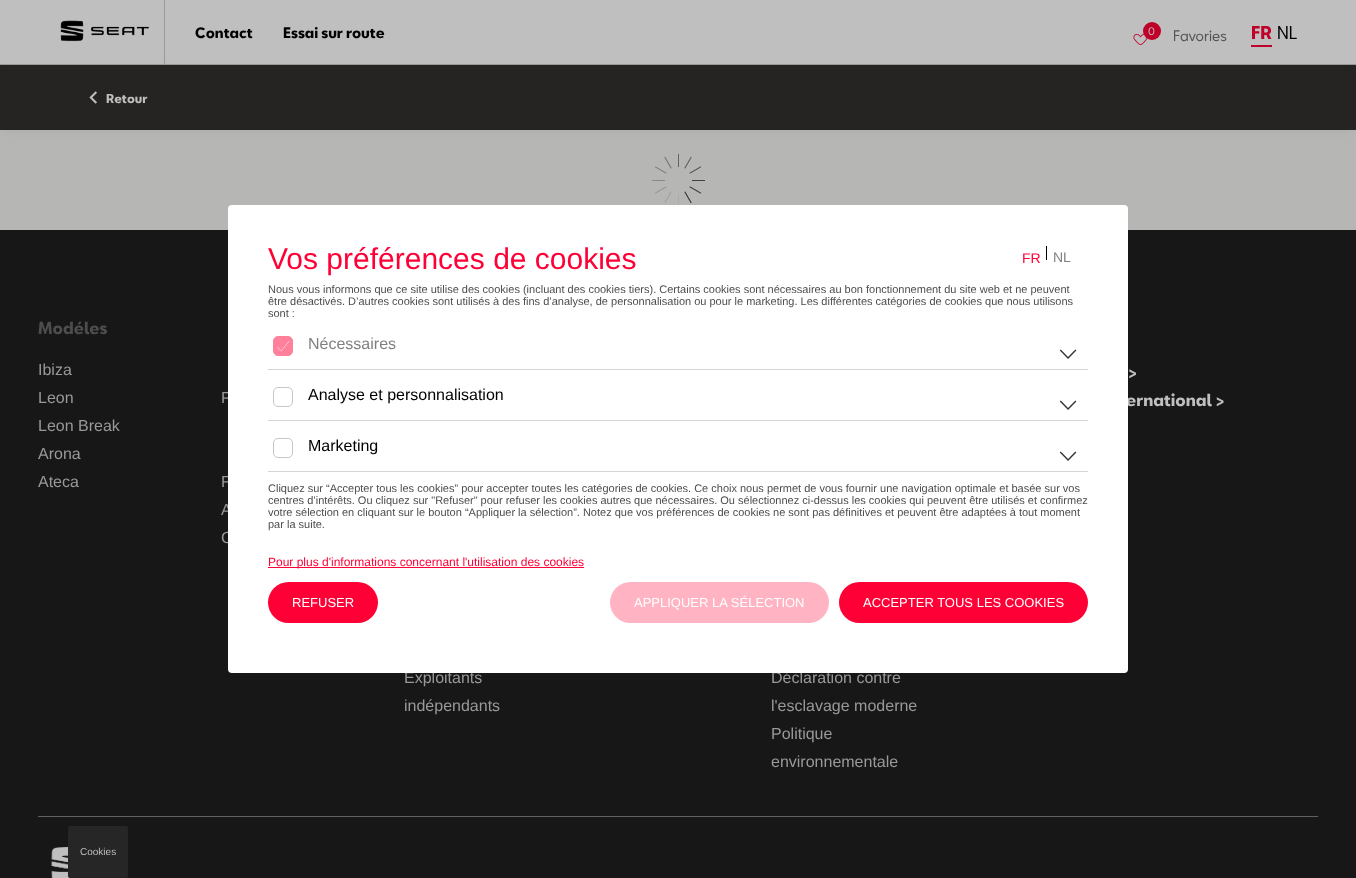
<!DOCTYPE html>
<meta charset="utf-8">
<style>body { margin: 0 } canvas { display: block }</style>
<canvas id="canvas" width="1356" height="878"></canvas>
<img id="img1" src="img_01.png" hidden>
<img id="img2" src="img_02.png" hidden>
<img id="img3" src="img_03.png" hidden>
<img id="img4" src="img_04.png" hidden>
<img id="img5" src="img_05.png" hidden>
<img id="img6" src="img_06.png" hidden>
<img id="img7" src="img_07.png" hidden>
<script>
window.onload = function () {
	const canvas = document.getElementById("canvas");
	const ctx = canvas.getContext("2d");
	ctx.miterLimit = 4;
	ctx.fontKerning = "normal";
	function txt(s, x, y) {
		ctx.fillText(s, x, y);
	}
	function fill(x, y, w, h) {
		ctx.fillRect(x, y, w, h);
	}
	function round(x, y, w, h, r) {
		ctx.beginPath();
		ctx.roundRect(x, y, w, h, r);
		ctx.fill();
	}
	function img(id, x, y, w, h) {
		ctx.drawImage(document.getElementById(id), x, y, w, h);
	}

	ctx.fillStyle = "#B6B6B5";
	fill(0, 0, 1356, 878);
	ctx.fillStyle = "#BFBFBF";
	fill(0, 0, 1356, 64);
	ctx.fillStyle = "#999999";
	fill(0, 64, 1356, 1);
	fill(164, 0, 1, 64);
	img("img1", 60, 20, 89, 22);
	img("img2", 1133, 34, 15, 11);
	ctx.fillStyle = "#BF0029";
	ctx.beginPath();
	ctx.arc(1152, 31, 9, 0, Math.PI * 2);
	ctx.fill();
	fill(1251, 45, 21, 2);
	ctx.fillStyle = "rgba(135, 135, 135, 0.46)";
	ctx.filter = "blur(5px)";
	ctx.beginPath();
	ctx.rect(5, 73, 1346, 55);
	ctx.fill();
	ctx.filter = "none";
	ctx.fillStyle = "#262422";
	fill(0, 65, 1356, 65);
	img("img3", 89, 91, 8, 13);
	img("img4", 652, 154, 53, 51);
	ctx.fillStyle = "#171717";
	fill(0, 230, 1356, 648);
	ctx.fillStyle = "#62615F";
	fill(38, 816, 1280, 1);
	img("img5", 51, 847, 19, 31);
	ctx.fillStyle = "#262626";
	round(68, 826, 60, 52, 2);
	ctx.font = "bold 14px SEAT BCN";
	ctx.fillStyle = "#000000";
	txt("Contact", 195, 38);
	txt("Essai sur route", 283, 38);
	ctx.font = "10px SEAT BCN";
	ctx.fillStyle = "#BFBFBF";
	txt("0", 1148, 35);
	ctx.font = "14px SEAT BCN";
	ctx.fillStyle = "#535353";
	txt("Favories", 1173, 41);
	ctx.font = "bold 17px SEAT BCN";
	ctx.fillStyle = "#BF0029";
	txt("FR", 1251, 39);
	ctx.font = "17px SEAT BCN";
	ctx.fillStyle = "#000000";
	txt("NL", 1277, 39);
	ctx.font = "bold 12px SEAT BCN";
	ctx.fillStyle = "#BFBFBF";
	txt("Retour", 106, 103);
	ctx.font = "bold 16px SEAT BCN";
	ctx.fillStyle = "#4D4D4D";
	txt("Modéles", 38, 334);
	ctx.font = "16px Liberation Sans";
	ctx.fillStyle = "#999999";
	txt("Ibiza", 38, 375);
	txt("Leon", 38, 403);
	txt("Leon Break", 38, 431);
	txt("Arona", 38, 459);
	txt("Ateca", 38, 487);
	txt("P", 221, 403);
	txt("F", 221, 487);
	txt("A", 221, 515);
	txt("C", 221, 543);
	txt("Exploitants", 404, 683);
	txt("indépendants", 404, 711);
	txt("Déclaration contre", 771, 683);
	txt("l'esclavage moderne", 771, 711);
	txt("Politique", 771, 739);
	txt("environnementale", 771, 767);
	ctx.font = "bold 16px SEAT BCN";
	ctx.fillStyle = "#BFBFBF";
	txt(">", 1128, 378);
	txt("ernational >", 1126, 406);
	ctx.fillStyle = "#FFFFFF";
	round(228, 205, 900, 468, 4);
	ctx.font = "30px Liberation Sans";
	ctx.fillStyle = "#FF0036";
	txt("Vos préférences de cookies", 268, 269);
	ctx.font = "14px Liberation Sans";
	txt("FR", 1022, 263);
	ctx.fillStyle = "#000000";
	fill(1046, 246, 1, 14);
	ctx.fillStyle = "#808080";
	txt("NL", 1053, 262);
	ctx.font = "11px Liberation Sans";
	ctx.fillStyle = "#4D4D4D";
	txt("Nous vous informons que ce site utilise des cookies (incluant des cookies tiers). Certains cookies sont nécessaires au bon fonctionnement du site web et ne peuvent", 268, 293);
	txt("être désactivés. D’autres cookies sont utilisés à des fins d’analyse, de personnalisation ou pour le marketing. Les différentes catégories de cookies que nous utilisons", 268, 305);
	txt("sont :", 268, 317);
	ctx.fillStyle = "#FF809B";
	ctx.beginPath();
	ctx.roundRect(273.5, 336.5, 19, 19, 4.5);
	ctx.fill();
	ctx.strokeStyle = "#FF809B";
	ctx.stroke();
	img("img6", 277, 341, 13, 11);
	ctx.font = "16px Liberation Sans";
	ctx.fillStyle = "#808080";
	txt("Nécessaires", 308, 349);
	img("img7", 1059, 349, 18, 10);
	ctx.fillStyle = "#D5D5D5";
	fill(268, 369, 820, 1);
	ctx.beginPath();
	ctx.roundRect(273.5, 387.5, 19, 19, 4.5);
	ctx.strokeStyle = "#C4C6C9";
	ctx.stroke();
	ctx.fillStyle = "#000000";
	txt("Analyse et personnalisation", 308, 400);
	img("img7", 1059, 400, 18, 10);
	ctx.fillStyle = "#D5D5D5";
	fill(268, 420, 820, 1);
	ctx.beginPath();
	ctx.roundRect(273.5, 438.5, 19, 19, 4.5);
	ctx.stroke();
	ctx.fillStyle = "#000000";
	txt("Marketing", 308, 451);
	img("img7", 1059, 451, 18, 10);
	ctx.fillStyle = "#D5D5D5";
	fill(268, 471, 820, 1);
	ctx.font = "11px Liberation Sans";
	ctx.fillStyle = "#4D4D4D";
	txt("Cliquez sur “Accepter tous les cookies” pour accepter toutes les catégories de cookies. Ce choix nous permet de vous fournir une navigation optimale et basée sur vos", 268, 492);
	txt("centres d’intérêts. Ou cliquez sur \"Refuser\" pour refuser les cookies autres que nécessaires. Ou sélectionnez ci-dessus les cookies qui peuvent être utilisés et confirmez", 268, 504);
	txt("votre sélection en cliquant sur le bouton “Appliquer la sélection”. Notez que vos préférences de cookies ne sont pas définitives et peuvent être adaptées à tout moment", 268, 516);
	txt("par la suite.", 268, 528);
	ctx.fillStyle = "#FF0036";
	fill(268, 567, 316, 1);
	ctx.font = "12px Liberation Sans";
	txt("Pour plus d'informations concernant l'utilisation des cookies", 268, 566);
	round(268, 582, 110, 41, 20.5);
	ctx.font = "13px Liberation Sans";
	ctx.fillStyle = "#FFFFFF";
	txt("REFUSER", 292, 607);
	ctx.fillStyle = "#FFB3C3";
	round(610, 582, 219, 41, 20.5);
	ctx.fillStyle = "#FFFFFF";
	txt("APPLIQUER LA SÉLECTION", 634, 607);
	ctx.fillStyle = "#FF0036";
	round(839, 582, 249, 41, 20.5);
	ctx.fillStyle = "#FFFFFF";
	txt("ACCEPTER TOUS LES COOKIES", 863, 607);
	ctx.font = "10px Liberation Sans";
	ctx.fillStyle = "#BFBFBF";
	txt("Cookies", 80, 855);
};
</script>
